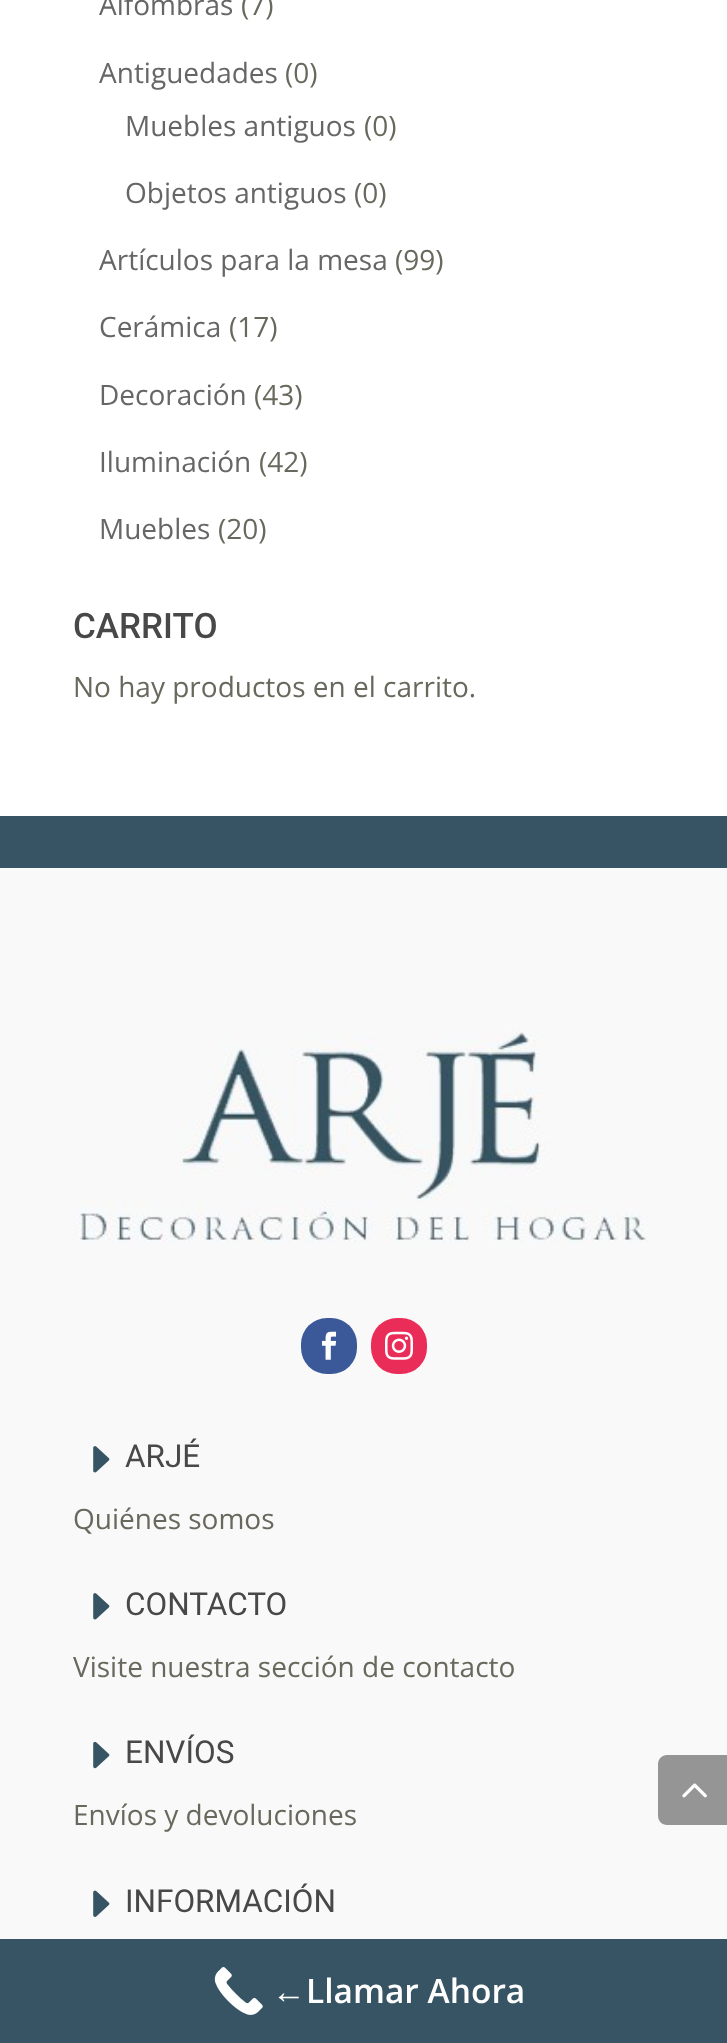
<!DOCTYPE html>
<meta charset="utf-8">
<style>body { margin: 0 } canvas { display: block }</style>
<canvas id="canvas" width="727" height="2043"></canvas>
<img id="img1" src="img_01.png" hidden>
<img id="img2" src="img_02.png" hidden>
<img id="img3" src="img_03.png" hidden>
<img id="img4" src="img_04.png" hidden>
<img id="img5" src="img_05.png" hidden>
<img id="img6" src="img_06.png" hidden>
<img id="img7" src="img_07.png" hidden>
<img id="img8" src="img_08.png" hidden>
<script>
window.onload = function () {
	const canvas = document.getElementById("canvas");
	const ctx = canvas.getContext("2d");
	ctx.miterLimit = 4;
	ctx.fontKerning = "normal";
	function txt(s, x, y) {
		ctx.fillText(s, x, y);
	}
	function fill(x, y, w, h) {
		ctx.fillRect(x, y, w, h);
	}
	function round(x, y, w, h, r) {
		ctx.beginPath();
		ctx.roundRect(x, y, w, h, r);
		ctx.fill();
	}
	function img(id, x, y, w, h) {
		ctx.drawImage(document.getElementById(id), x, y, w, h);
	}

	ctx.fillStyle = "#FFFFFF";
	fill(0, 0, 727, 2043);
	ctx.fillStyle = "#F9F9F9";
	fill(0, 868, 727, 1071);
	ctx.fillStyle = "#375464";
	fill(0, 816, 727, 52);
	img("img1", 74, 1029, 574, 215);
	ctx.fillStyle = "#3B5998";
	round(301, 1318, 56, 56, 26);
	img("img2", 322, 1331, 15, 29);
	ctx.fillStyle = "#EA2C59";
	round(371, 1318, 56, 56, 26);
	img("img3", 385, 1331, 28, 29);
	img("img4", 93, 1446, 17, 27);
	img("img4", 93, 1593, 17, 27);
	img("img5", 93, 1741, 17, 28);
	img("img6", 93, 1890, 17, 27);
	ctx.fillStyle = "#959595";
	ctx.beginPath();
	ctx.moveTo(667, 1755);
	ctx.lineTo(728, 1755);
	ctx.lineTo(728, 1825);
	ctx.lineTo(667, 1825);
	ctx.bezierCurveTo(662, 1825, 658, 1821, 658, 1816);
	ctx.lineTo(658, 1764);
	ctx.bezierCurveTo(658, 1759, 662, 1755, 667, 1755);
	ctx.closePath();
	ctx.fill();
	img("img7", 682, 1783, 25, 15);
	ctx.fillStyle = "#375464";
	fill(0, 1939, 727, 104);
	img("img8", 214, 1967, 49, 48);
	ctx.font = "28px Open Sans";
	ctx.fillStyle = "#666666";
	txt("Alfombras", 99, 15);
	ctx.fillStyle = "#69685D";
	txt("(7)", 241, 15);
	ctx.fillStyle = "#666666";
	txt("Antiguedades", 99, 83);
	ctx.fillStyle = "#69685D";
	txt("(0)", 285, 83);
	ctx.fillStyle = "#666666";
	txt("Muebles antiguos", 125, 136);
	ctx.fillStyle = "#69685D";
	txt("(0)", 364, 136);
	ctx.fillStyle = "#666666";
	txt("Objetos antiguos", 125, 203);
	ctx.fillStyle = "#69685D";
	txt("(0)", 354, 203);
	ctx.fillStyle = "#666666";
	txt("Artículos para la mesa", 99, 270);
	ctx.fillStyle = "#69685D";
	txt("(99)", 395, 270);
	ctx.fillStyle = "#666666";
	txt("Cerámica", 99, 337);
	ctx.fillStyle = "#69685D";
	txt("(17)", 229, 337);
	ctx.fillStyle = "#666666";
	txt("Decoración", 99, 405);
	ctx.fillStyle = "#69685D";
	txt("(43)", 254, 405);
	ctx.fillStyle = "#666666";
	txt("Iluminación", 99, 472);
	ctx.fillStyle = "#69685D";
	txt("(42)", 259, 472);
	ctx.fillStyle = "#666666";
	txt("Muebles", 99, 539);
	ctx.fillStyle = "#69685D";
	txt("(20)", 218, 539);
	ctx.font = "500 35px Roboto";
	ctx.fillStyle = "#484848";
	txt("CARRITO", 73, 638);
	ctx.font = "28px Open Sans";
	ctx.fillStyle = "#69685D";
	txt("No hay productos en el carrito.", 73, 697);
	ctx.font = "31.5px Roboto";
	ctx.fillStyle = "#484848";
	txt("ARJÉ", 125, 1467);
	ctx.font = "28px Open Sans";
	ctx.fillStyle = "#69685D";
	txt("Quiénes somos", 73, 1529);
	ctx.font = "31.5px Roboto";
	ctx.fillStyle = "#484848";
	txt("CONTACTO", 125, 1615);
	ctx.font = "28px Open Sans";
	ctx.fillStyle = "#69685D";
	txt("Visite nuestra sección de contacto", 73, 1677);
	ctx.font = "31.5px Roboto";
	ctx.fillStyle = "#484848";
	txt("ENVÍOS", 125, 1763);
	ctx.font = "28px Open Sans";
	ctx.fillStyle = "#69685D";
	txt("Envíos y devoluciones", 73, 1825);
	ctx.font = "31.5px Roboto";
	ctx.fillStyle = "#484848";
	txt("INFORMACIÓN", 125, 1912);
	ctx.font = "bold 33.5px Liberation Sans";
	ctx.fillStyle = "#FFFFFF";
	txt("←", 272, 2003);
	ctx.font = "600 33.5px Open Sans";
	txt("Llamar Ahora", 306, 2003);
};
</script>
